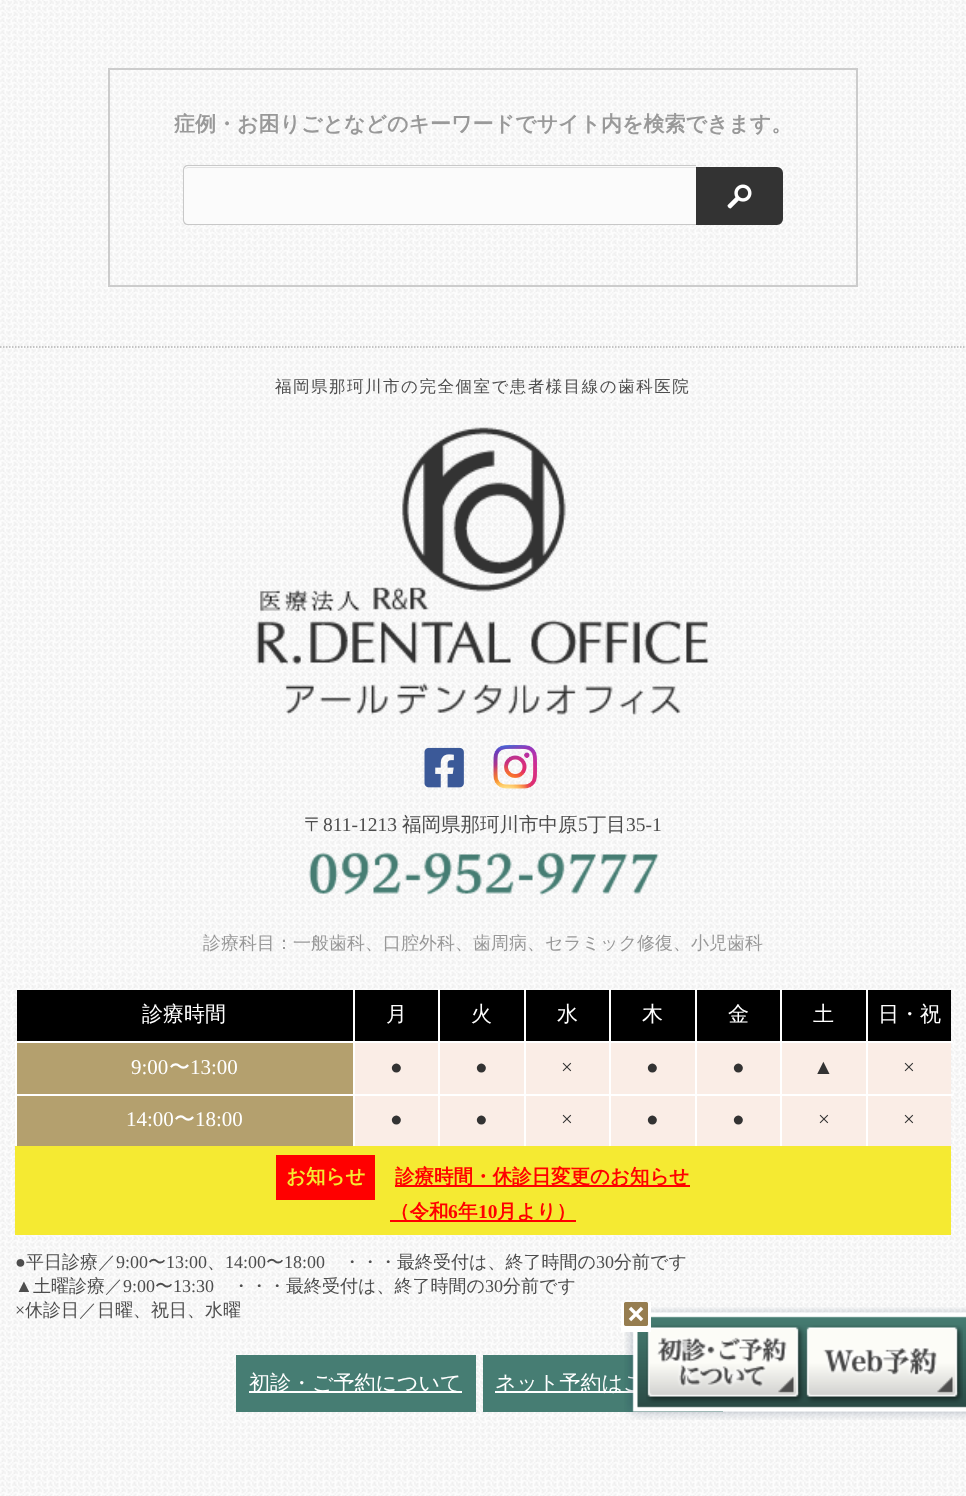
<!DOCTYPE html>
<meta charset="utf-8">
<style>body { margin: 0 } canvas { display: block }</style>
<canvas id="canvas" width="966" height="1496"></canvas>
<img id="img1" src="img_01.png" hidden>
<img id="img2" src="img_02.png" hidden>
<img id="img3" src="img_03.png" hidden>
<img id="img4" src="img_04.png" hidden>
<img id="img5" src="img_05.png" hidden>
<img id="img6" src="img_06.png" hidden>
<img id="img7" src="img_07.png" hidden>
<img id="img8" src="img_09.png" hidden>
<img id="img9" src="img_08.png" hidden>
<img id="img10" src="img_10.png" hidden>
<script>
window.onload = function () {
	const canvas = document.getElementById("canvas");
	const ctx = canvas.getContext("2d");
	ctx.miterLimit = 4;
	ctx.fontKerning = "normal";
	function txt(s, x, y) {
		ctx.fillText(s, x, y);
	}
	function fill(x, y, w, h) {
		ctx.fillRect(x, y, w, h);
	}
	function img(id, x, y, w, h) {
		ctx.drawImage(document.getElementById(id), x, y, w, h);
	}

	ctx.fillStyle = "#FFFFFF";
	fill(0, 0, 966, 1496);
	img("img1", 0, 0, 966, 1496);
	ctx.strokeStyle = "#CCCCCC";
	ctx.lineWidth = 2;
	ctx.strokeRect(109, 69, 748, 217);
	ctx.fillStyle = "#FBFBFB";
	ctx.beginPath();
	ctx.roundRect(183, 165, 513, 60, [5, 0, 0, 5]);
	ctx.fill();
	ctx.fillStyle = "#E2E2E2";
	ctx.beginPath();
	ctx.moveTo(188, 168);
	ctx.lineTo(696, 168);
	ctx.lineTo(696, 167);
	ctx.lineTo(188, 167);
	ctx.bezierCurveTo(187, 167, 186, 168, 185, 169);
	ctx.closePath();
	ctx.fill();
	ctx.fillStyle = "rgba(0, 0, 0, 0.2)";
	ctx.beginPath();
	ctx.moveTo(188, 165);
	ctx.lineTo(696, 165);
	ctx.lineTo(696, 225);
	ctx.lineTo(188, 225);
	ctx.bezierCurveTo(185, 225, 183, 223, 183, 220);
	ctx.lineTo(183, 170);
	ctx.bezierCurveTo(183, 167, 185, 165, 188, 165);
	ctx.closePath();
	ctx.moveTo(188, 166);
	ctx.lineTo(696, 166);
	ctx.lineTo(696, 224);
	ctx.lineTo(188, 224);
	ctx.bezierCurveTo(186, 224, 184, 222, 184, 220);
	ctx.lineTo(184, 170);
	ctx.bezierCurveTo(184, 168, 186, 166, 188, 166);
	ctx.closePath();
	ctx.fill("evenodd");
	ctx.fillStyle = "#333333";
	ctx.beginPath();
	ctx.roundRect(697, 168, 85, 56, [0, 5, 5, 0]);
	ctx.fill();
	ctx.strokeStyle = "#333333";
	ctx.stroke();
	img("img2", 727, 184, 25, 25);
	ctx.beginPath();
	ctx.moveTo(0, 347);
	ctx.lineTo(966, 347);
	ctx.strokeStyle = "#B3B3B3";
	ctx.lineWidth = 1.5;
	ctx.setLineDash([1.5, 1.5]);
	ctx.stroke();
	img("img3", 256, 427, 453, 288);
	img("img4", 424, 747, 40, 41);
	img("img5", 493, 745, 44, 44);
	img("img6", 308, 852, 351, 44);
	ctx.fillStyle = "#000000";
	fill(17, 990, 336, 51);
	fill(355, 990, 83, 51);
	ctx.fillStyle = "#FFFFFF";
	fill(866, 1041, 87, 2);
	fill(866, 1094, 87, 2);
	fill(866, 1094, 2, 52);
	fill(780, 1094, 87, 2);
	fill(866, 1041, 2, 54);
	fill(780, 1041, 87, 2);
	fill(780, 1094, 2, 52);
	fill(695, 1094, 87, 2);
	fill(780, 1041, 2, 54);
	fill(695, 1041, 87, 2);
	fill(695, 1094, 2, 52);
	fill(609, 1094, 87, 2);
	fill(695, 1041, 2, 54);
	fill(609, 1041, 87, 2);
	fill(609, 1094, 2, 52);
	fill(524, 1094, 87, 2);
	fill(609, 1041, 2, 54);
	fill(524, 1041, 87, 2);
	fill(524, 1094, 2, 52);
	fill(438, 1094, 87, 2);
	fill(524, 1041, 2, 54);
	fill(438, 1041, 87, 2);
	fill(438, 1094, 2, 52);
	fill(353, 1094, 87, 2);
	fill(438, 1041, 2, 54);
	fill(353, 1041, 87, 2);
	fill(353, 1094, 2, 52);
	fill(15, 1094, 339, 2);
	fill(353, 1041, 2, 54);
	fill(15, 1041, 339, 2);
	fill(353, 989, 2, 54);
	ctx.fillStyle = "#000000";
	fill(440, 990, 84, 51);
	ctx.fillStyle = "#FFFFFF";
	fill(438, 989, 2, 54);
	ctx.fillStyle = "#000000";
	fill(526, 990, 83, 51);
	ctx.fillStyle = "#FFFFFF";
	fill(524, 989, 2, 54);
	ctx.fillStyle = "#000000";
	fill(611, 990, 84, 51);
	ctx.fillStyle = "#FFFFFF";
	fill(609, 989, 2, 54);
	ctx.fillStyle = "#000000";
	fill(697, 990, 83, 51);
	ctx.fillStyle = "#FFFFFF";
	fill(695, 989, 2, 54);
	ctx.fillStyle = "#000000";
	fill(782, 990, 84, 51);
	ctx.fillStyle = "#FFFFFF";
	fill(780, 989, 2, 54);
	ctx.fillStyle = "#000000";
	fill(868, 990, 83, 51);
	ctx.fillStyle = "#FFFFFF";
	fill(866, 989, 2, 54);
	ctx.fillStyle = "#B4A06E";
	fill(17, 1043, 336, 51);
	ctx.fillStyle = "#FFFFFF";
	fill(15, 1094, 2, 52);
	fill(15, 1041, 2, 54);
	ctx.fillStyle = "#FAEDE6";
	fill(355, 1043, 83, 51);
	fill(440, 1043, 84, 51);
	fill(526, 1043, 83, 51);
	fill(611, 1043, 84, 51);
	fill(697, 1043, 83, 51);
	fill(782, 1043, 84, 51);
	fill(868, 1043, 83, 51);
	ctx.fillStyle = "#B4A06E";
	fill(17, 1096, 336, 50);
	ctx.fillStyle = "#FAEDE6";
	fill(355, 1096, 83, 50);
	fill(440, 1096, 84, 50);
	fill(526, 1096, 83, 50);
	fill(611, 1096, 84, 50);
	fill(697, 1096, 83, 50);
	fill(782, 1096, 84, 50);
	fill(868, 1096, 83, 50);
	ctx.fillStyle = "#F5EA32";
	fill(15, 1146, 936, 89);
	ctx.fillStyle = "#FF0000";
	fill(276, 1155, 99, 45);
	fill(395, 1185, 295, 2);
	fill(390, 1220, 186, 2);
	ctx.fillStyle = "#467D73";
	fill(236, 1355, 240, 57);
	ctx.fillStyle = "#FFFFFF";
	fill(249, 1391, 213, 2);
	ctx.fillStyle = "#467D73";
	fill(483, 1355, 240, 57);
	ctx.fillStyle = "#FFFFFF";
	fill(495, 1391, 139, 2);
	ctx.font = "bold 21px WenQuanYi Zen Hei";
	ctx.fillStyle = "#999999";
	txt("症例・お困りごとなどのキーワードでサイト内を検索できます。", 174, 131);
	ctx.letterSpacing = "1.5px";
	ctx.font = "500 16.5px WenQuanYi Zen Hei";
	ctx.fillStyle = "#4D4D4D";
	txt("福岡県那珂川市の完全個室で患者様目線の歯科医院", 275, 392);
	ctx.letterSpacing = "0px";
	ctx.font = "500 19.5px WenQuanYi Zen Hei";
	txt("〒", 304, 831);
	ctx.font = "19.5px Liberation Serif";
	txt("811-1213", 323, 831);
	ctx.font = "500 19.5px WenQuanYi Zen Hei";
	txt("福岡県那珂川市中原", 402, 831);
	ctx.font = "19.5px Liberation Serif";
	txt("5", 578, 831);
	ctx.font = "500 19.5px WenQuanYi Zen Hei";
	txt("丁目", 587, 831);
	ctx.font = "19.5px Liberation Serif";
	txt("35-1", 626, 831);
	ctx.font = "500 18px WenQuanYi Zen Hei";
	ctx.fillStyle = "#999999";
	txt("診療科目：一般歯科、口腔外科、歯周病、セラミック修復、小児歯科", 203, 949);
	ctx.font = "500 21px WenQuanYi Zen Hei";
	ctx.fillStyle = "#FFFFFF";
	txt("診療時間", 142, 1021);
	txt("月", 386, 1021);
	txt("火", 471, 1021);
	txt("水", 557, 1021);
	txt("木", 642, 1021);
	txt("金", 728, 1021);
	txt("土", 813, 1021);
	txt("日・祝", 878, 1021);
	ctx.font = "21px Liberation Serif";
	txt("9:00", 131, 1074);
	ctx.font = "500 21px WenQuanYi Zen Hei";
	txt("〜", 169, 1074);
	ctx.font = "21px Liberation Serif";
	txt("13:00", 190, 1074);
	ctx.fillStyle = "#333333";
	txt("●", 390, 1074);
	txt("●", 475, 1074);
	txt("×", 561, 1074);
	txt("●", 646, 1074);
	txt("●", 732, 1074);
	txt("▲", 813, 1074);
	txt("×", 903, 1074);
	ctx.fillStyle = "#FFFFFF";
	txt("14:00", 126, 1126);
	ctx.font = "500 21px WenQuanYi Zen Hei";
	txt("〜", 174, 1126);
	ctx.font = "21px Liberation Serif";
	txt("18:00", 195, 1126);
	ctx.fillStyle = "#333333";
	txt("●", 390, 1126);
	txt("●", 475, 1126);
	txt("×", 561, 1126);
	txt("●", 646, 1126);
	txt("●", 732, 1126);
	txt("×", 818, 1126);
	txt("×", 903, 1126);
	ctx.font = "bold 19.5px WenQuanYi Zen Hei";
	ctx.fillStyle = "#F5EA32";
	txt("お知らせ", 286, 1183);
	ctx.fillStyle = "#FF0000";
	txt("診療時間・休診日変更のお知らせ", 395, 1183);
	txt("（令和", 390, 1218);
	ctx.font = "bold 19.5px Liberation Serif";
	txt("6", 448, 1218);
	ctx.font = "bold 19.5px WenQuanYi Zen Hei";
	txt("年", 458, 1218);
	ctx.font = "bold 19.5px Liberation Serif";
	txt("10", 478, 1218);
	ctx.font = "bold 19.5px WenQuanYi Zen Hei";
	txt("月より）", 497, 1218);
	ctx.font = "18px Liberation Serif";
	ctx.fillStyle = "#4D4D4D";
	txt("●", 15, 1268);
	ctx.font = "500 18px WenQuanYi Zen Hei";
	txt("平日診療／", 26, 1268);
	ctx.font = "18px Liberation Serif";
	txt("9:00", 116, 1268);
	ctx.font = "500 18px WenQuanYi Zen Hei";
	txt("〜", 148, 1268);
	ctx.font = "18px Liberation Serif";
	txt("13:00", 166, 1268);
	txt("14:00", 225, 1268);
	ctx.font = "500 18px WenQuanYi Zen Hei";
	txt("〜", 266, 1268);
	ctx.font = "18px Liberation Serif";
	txt("18:00", 284, 1268);
	ctx.font = "500 18px WenQuanYi Zen Hei";
	txt("・・・最終受付は、終了時間の", 343, 1268);
	ctx.font = "18px Liberation Serif";
	txt("30", 596, 1268);
	ctx.font = "500 18px WenQuanYi Zen Hei";
	txt("分前です", 614, 1268);
	txt("、", 207, 1268);
	ctx.font = "18px Liberation Serif";
	txt("▲", 15, 1292);
	ctx.font = "500 18px WenQuanYi Zen Hei";
	txt("土曜診療／", 33, 1292);
	ctx.font = "18px Liberation Serif";
	txt("9:00", 123, 1292);
	ctx.font = "500 18px WenQuanYi Zen Hei";
	txt("〜", 155, 1292);
	ctx.font = "18px Liberation Serif";
	txt("13:30", 173, 1292);
	ctx.font = "500 18px WenQuanYi Zen Hei";
	txt("・・・最終受付は、終了時間の", 232, 1292);
	ctx.font = "18px Liberation Serif";
	txt("30", 485, 1292);
	ctx.font = "500 18px WenQuanYi Zen Hei";
	txt("分前です", 503, 1292);
	ctx.font = "18px Liberation Serif";
	txt("×", 15, 1316);
	ctx.font = "500 18px WenQuanYi Zen Hei";
	txt("休診日／日曜、祝日、水曜", 25, 1316);
	ctx.font = "500 21px WenQuanYi Zen Hei";
	ctx.fillStyle = "#FFFFFF";
	txt("初診・ご予約について", 249, 1390);
	txt("ネット予約はこ", 495, 1390);
	img("img7", 624, 1307, 342, 113);
	img("img8", 646, 1325, 158, 78);
	fill(621, 1302, 30, 30);
	img("img9", 624, 1302, 24, 24);
	img("img10", 804, 1325, 159, 78);
};
</script>
